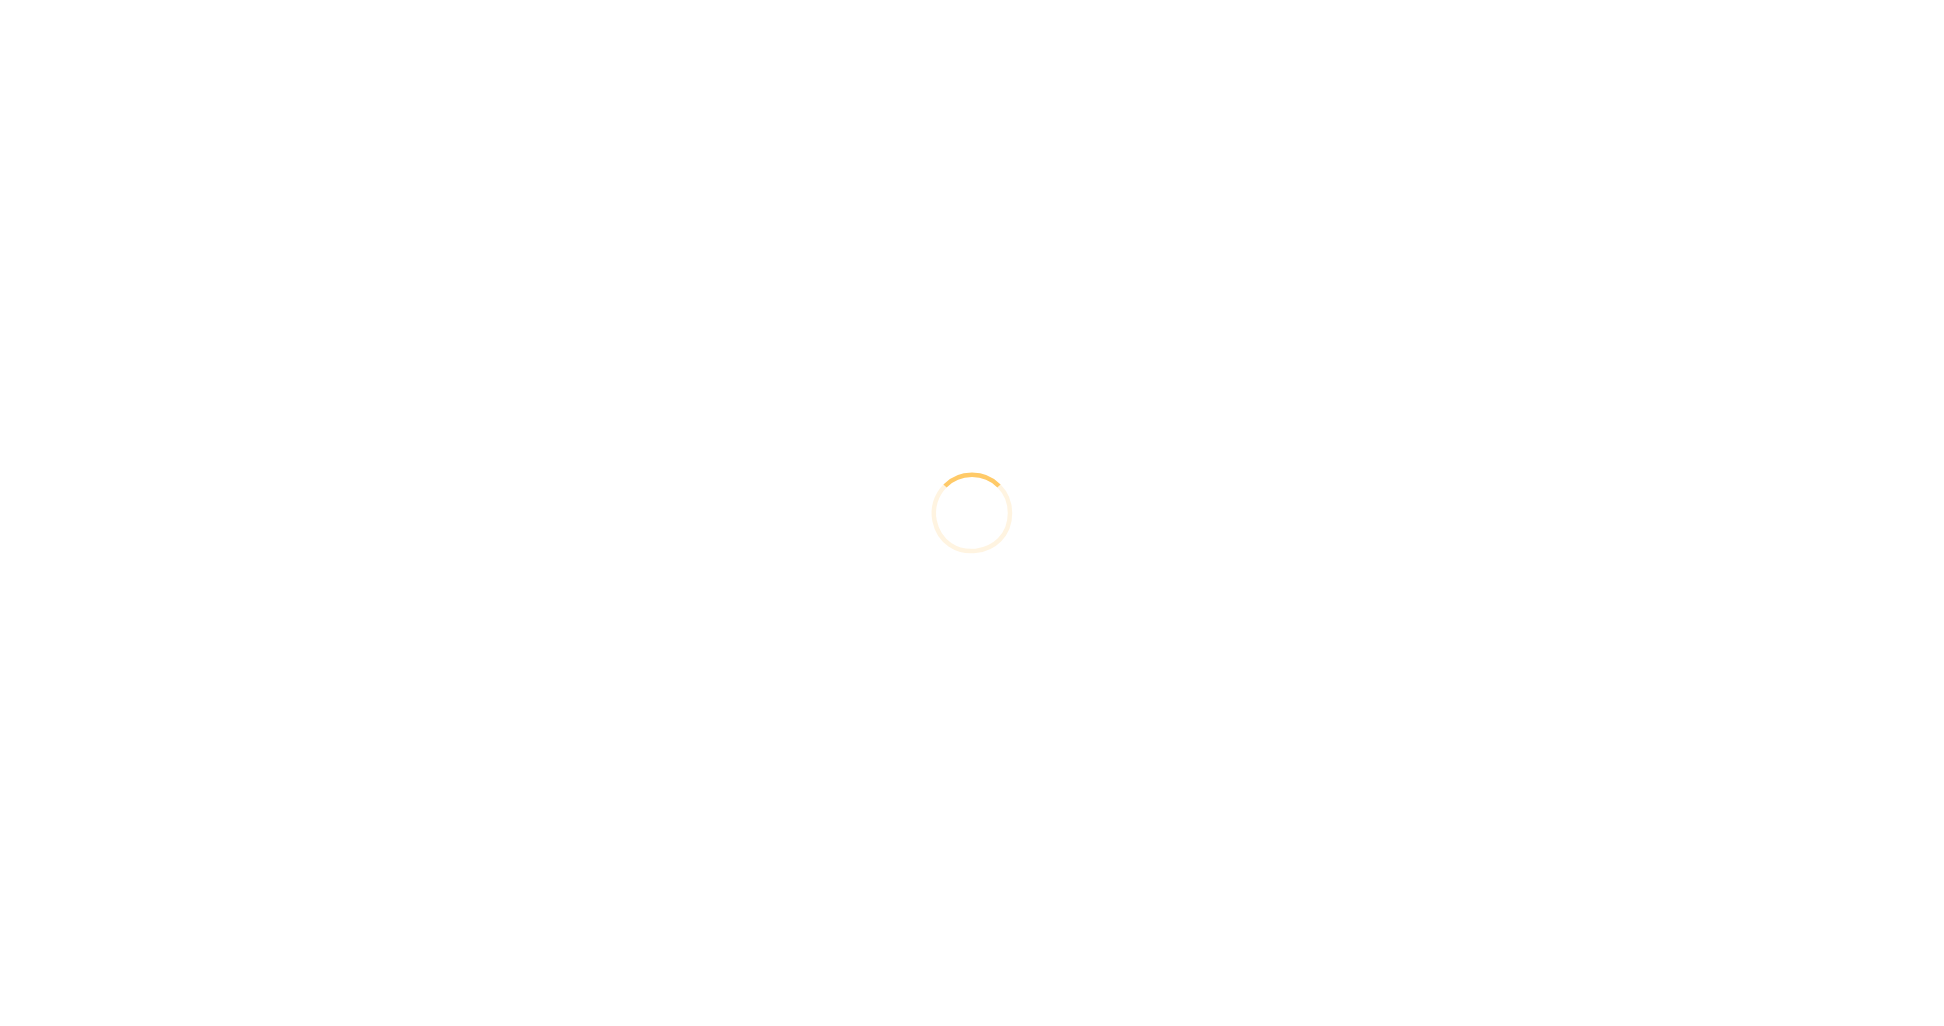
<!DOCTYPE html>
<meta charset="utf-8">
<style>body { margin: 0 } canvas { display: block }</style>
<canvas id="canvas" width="1944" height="1026"></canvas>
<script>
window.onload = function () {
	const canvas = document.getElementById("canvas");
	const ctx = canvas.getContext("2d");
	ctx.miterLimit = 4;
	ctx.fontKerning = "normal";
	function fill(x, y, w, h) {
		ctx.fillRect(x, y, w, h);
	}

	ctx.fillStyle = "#FFFFFF";
	fill(0, 0, 1944, 1026);
	ctx.beginPath();
	ctx.moveTo(945, 486);
	ctx.bezierCurveTo(959.5, 471, 984.5, 471, 999, 486);
	ctx.strokeStyle = "#FFCA68";
	ctx.lineWidth = 4.5;
	ctx.stroke();
	ctx.beginPath();
	ctx.moveTo(999, 486);
	ctx.bezierCurveTo(1006, 493, 1010, 503, 1010, 513);
	ctx.bezierCurveTo(1010, 559, 943.5, 565.5, 934.5, 520.5);
	ctx.bezierCurveTo(932, 508, 936, 495, 945, 486);
	ctx.strokeStyle = "rgba(255, 202, 104, 0.2)";
	ctx.stroke();
};
</script>
